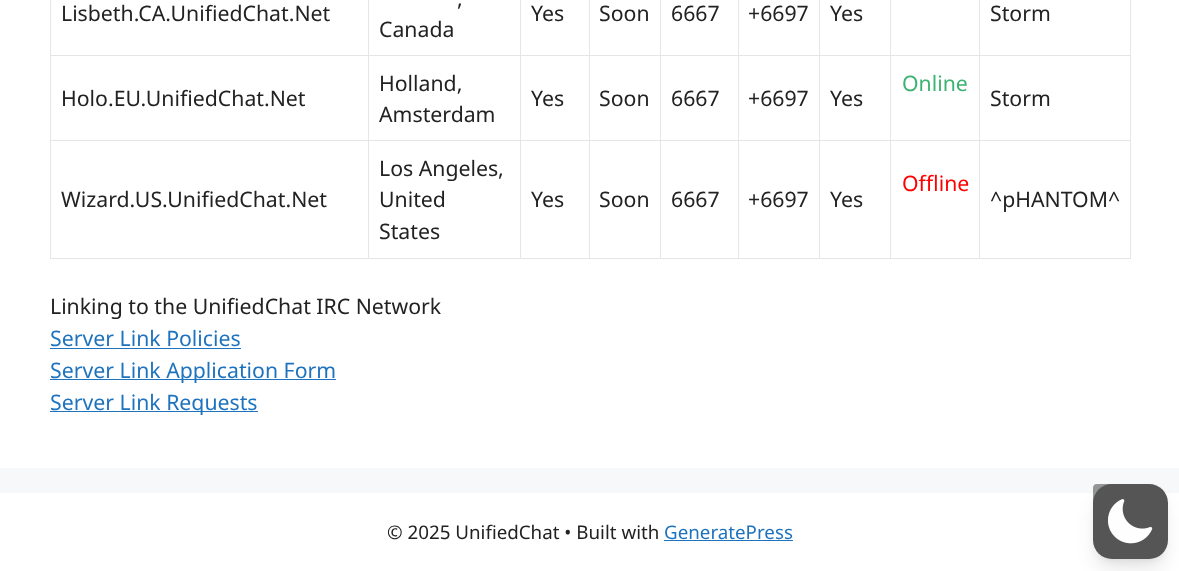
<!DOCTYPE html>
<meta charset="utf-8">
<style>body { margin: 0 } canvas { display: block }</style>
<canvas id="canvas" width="1179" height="571"></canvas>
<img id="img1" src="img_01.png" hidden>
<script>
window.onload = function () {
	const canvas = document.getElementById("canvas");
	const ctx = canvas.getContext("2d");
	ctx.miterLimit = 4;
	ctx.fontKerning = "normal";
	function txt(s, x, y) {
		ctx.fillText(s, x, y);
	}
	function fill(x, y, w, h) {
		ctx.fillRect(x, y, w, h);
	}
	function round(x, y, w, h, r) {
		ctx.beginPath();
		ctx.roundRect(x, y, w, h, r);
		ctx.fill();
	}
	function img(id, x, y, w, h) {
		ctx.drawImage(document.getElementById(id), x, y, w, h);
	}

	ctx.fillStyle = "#F7F8F9";
	fill(0, 0, 1179, 571);
	ctx.fillStyle = "#FFFFFF";
	fill(0, 0, 1179, 468);
	ctx.fillStyle = "#E6E6E6";
	ctx.beginPath();
	ctx.moveTo(50, 259);
	ctx.lineTo(50, -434);
	ctx.lineTo(51, -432);
	ctx.lineTo(51, 259);
	ctx.closePath();
	ctx.fill();
	ctx.beginPath();
	ctx.moveTo(369, -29);
	ctx.lineTo(369, 56);
	ctx.lineTo(368, 55);
	ctx.lineTo(368, -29);
	ctx.closePath();
	ctx.fill();
	ctx.fillStyle = "rgba(0, 0, 0, 0.1)";
	ctx.beginPath();
	ctx.moveTo(369, 56);
	ctx.lineTo(51, 56);
	ctx.lineTo(51, 55);
	ctx.lineTo(368, 55);
	ctx.closePath();
	ctx.fill();
	ctx.fillStyle = "#E6E6E6";
	ctx.beginPath();
	ctx.moveTo(521, -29);
	ctx.lineTo(521, 56);
	ctx.lineTo(520, 55);
	ctx.lineTo(520, -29);
	ctx.closePath();
	ctx.fill();
	ctx.fillStyle = "rgba(0, 0, 0, 0.1)";
	ctx.beginPath();
	ctx.moveTo(521, 56);
	ctx.lineTo(369, 56);
	ctx.lineTo(369, 55);
	ctx.lineTo(520, 55);
	ctx.closePath();
	ctx.fill();
	ctx.fillStyle = "#E6E6E6";
	ctx.beginPath();
	ctx.moveTo(590, -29);
	ctx.lineTo(590, 56);
	ctx.lineTo(589, 55);
	ctx.lineTo(589, -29);
	ctx.closePath();
	ctx.fill();
	ctx.fillStyle = "rgba(0, 0, 0, 0.1)";
	ctx.beginPath();
	ctx.moveTo(590, 56);
	ctx.lineTo(521, 56);
	ctx.lineTo(521, 55);
	ctx.lineTo(589, 55);
	ctx.closePath();
	ctx.fill();
	ctx.fillStyle = "#E6E6E6";
	ctx.beginPath();
	ctx.moveTo(661, -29);
	ctx.lineTo(661, 56);
	ctx.lineTo(660, 55);
	ctx.lineTo(660, -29);
	ctx.closePath();
	ctx.fill();
	ctx.fillStyle = "rgba(0, 0, 0, 0.1)";
	ctx.beginPath();
	ctx.moveTo(661, 56);
	ctx.lineTo(590, 56);
	ctx.lineTo(590, 55);
	ctx.lineTo(660, 55);
	ctx.closePath();
	ctx.fill();
	ctx.fillStyle = "#E6E6E6";
	ctx.beginPath();
	ctx.moveTo(739, -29);
	ctx.lineTo(739, 56);
	ctx.lineTo(738, 55);
	ctx.lineTo(738, -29);
	ctx.closePath();
	ctx.fill();
	ctx.fillStyle = "rgba(0, 0, 0, 0.1)";
	ctx.beginPath();
	ctx.moveTo(739, 56);
	ctx.lineTo(661, 56);
	ctx.lineTo(661, 55);
	ctx.lineTo(738, 55);
	ctx.closePath();
	ctx.fill();
	ctx.fillStyle = "#E6E6E6";
	ctx.beginPath();
	ctx.moveTo(820, -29);
	ctx.lineTo(820, 56);
	ctx.lineTo(819, 55);
	ctx.lineTo(819, -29);
	ctx.closePath();
	ctx.fill();
	ctx.fillStyle = "rgba(0, 0, 0, 0.1)";
	ctx.beginPath();
	ctx.moveTo(820, 56);
	ctx.lineTo(739, 56);
	ctx.lineTo(739, 55);
	ctx.lineTo(819, 55);
	ctx.closePath();
	ctx.fill();
	ctx.fillStyle = "#E6E6E6";
	ctx.beginPath();
	ctx.moveTo(891, -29);
	ctx.lineTo(891, 56);
	ctx.lineTo(890, 55);
	ctx.lineTo(890, -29);
	ctx.closePath();
	ctx.fill();
	ctx.fillStyle = "rgba(0, 0, 0, 0.1)";
	ctx.beginPath();
	ctx.moveTo(891, 56);
	ctx.lineTo(820, 56);
	ctx.lineTo(820, 55);
	ctx.lineTo(890, 55);
	ctx.closePath();
	ctx.fill();
	ctx.fillStyle = "#E6E6E6";
	ctx.beginPath();
	ctx.moveTo(980, -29);
	ctx.lineTo(980, 56);
	ctx.lineTo(979, 55);
	ctx.lineTo(979, -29);
	ctx.closePath();
	ctx.fill();
	ctx.fillStyle = "rgba(0, 0, 0, 0.1)";
	ctx.beginPath();
	ctx.moveTo(980, 56);
	ctx.lineTo(891, 56);
	ctx.lineTo(891, 55);
	ctx.lineTo(979, 55);
	ctx.closePath();
	ctx.fill();
	ctx.fillStyle = "#E6E6E6";
	ctx.beginPath();
	ctx.moveTo(1131, -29);
	ctx.lineTo(1131, 56);
	ctx.lineTo(1130, 55);
	ctx.lineTo(1130, -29);
	ctx.closePath();
	ctx.fill();
	ctx.fillStyle = "rgba(0, 0, 0, 0.1)";
	ctx.beginPath();
	ctx.moveTo(1131, 56);
	ctx.lineTo(980, 56);
	ctx.lineTo(980, 55);
	ctx.lineTo(1130, 55);
	ctx.closePath();
	ctx.fill();
	ctx.fillStyle = "#E6E6E6";
	ctx.beginPath();
	ctx.moveTo(521, 56);
	ctx.lineTo(521, 141);
	ctx.lineTo(520, 140);
	ctx.lineTo(520, 56);
	ctx.closePath();
	ctx.fill();
	ctx.fillStyle = "rgba(0, 0, 0, 0.1)";
	ctx.beginPath();
	ctx.moveTo(521, 141);
	ctx.lineTo(369, 141);
	ctx.lineTo(369, 140);
	ctx.lineTo(520, 140);
	ctx.closePath();
	ctx.fill();
	ctx.fillStyle = "#E6E6E6";
	ctx.beginPath();
	ctx.moveTo(980, 56);
	ctx.lineTo(980, 141);
	ctx.lineTo(979, 140);
	ctx.lineTo(979, 56);
	ctx.closePath();
	ctx.fill();
	ctx.fillStyle = "rgba(0, 0, 0, 0.1)";
	ctx.beginPath();
	ctx.moveTo(980, 141);
	ctx.lineTo(891, 141);
	ctx.lineTo(891, 140);
	ctx.lineTo(979, 140);
	ctx.closePath();
	ctx.fill();
	ctx.fillStyle = "#E6E6E6";
	ctx.beginPath();
	ctx.moveTo(369, 56);
	ctx.lineTo(369, 141);
	ctx.lineTo(368, 140);
	ctx.lineTo(368, 56);
	ctx.closePath();
	ctx.fill();
	ctx.fillStyle = "rgba(0, 0, 0, 0.1)";
	ctx.beginPath();
	ctx.moveTo(369, 141);
	ctx.lineTo(51, 141);
	ctx.lineTo(51, 140);
	ctx.lineTo(368, 140);
	ctx.closePath();
	ctx.fill();
	ctx.fillStyle = "#E6E6E6";
	ctx.beginPath();
	ctx.moveTo(590, 56);
	ctx.lineTo(590, 141);
	ctx.lineTo(589, 140);
	ctx.lineTo(589, 56);
	ctx.closePath();
	ctx.fill();
	ctx.fillStyle = "rgba(0, 0, 0, 0.1)";
	ctx.beginPath();
	ctx.moveTo(590, 141);
	ctx.lineTo(521, 141);
	ctx.lineTo(521, 140);
	ctx.lineTo(589, 140);
	ctx.closePath();
	ctx.fill();
	ctx.fillStyle = "#E6E6E6";
	ctx.beginPath();
	ctx.moveTo(661, 56);
	ctx.lineTo(661, 141);
	ctx.lineTo(660, 140);
	ctx.lineTo(660, 56);
	ctx.closePath();
	ctx.fill();
	ctx.fillStyle = "rgba(0, 0, 0, 0.1)";
	ctx.beginPath();
	ctx.moveTo(661, 141);
	ctx.lineTo(590, 141);
	ctx.lineTo(590, 140);
	ctx.lineTo(660, 140);
	ctx.closePath();
	ctx.fill();
	ctx.fillStyle = "#E6E6E6";
	ctx.beginPath();
	ctx.moveTo(739, 56);
	ctx.lineTo(739, 141);
	ctx.lineTo(738, 140);
	ctx.lineTo(738, 56);
	ctx.closePath();
	ctx.fill();
	ctx.fillStyle = "rgba(0, 0, 0, 0.1)";
	ctx.beginPath();
	ctx.moveTo(739, 141);
	ctx.lineTo(661, 141);
	ctx.lineTo(661, 140);
	ctx.lineTo(738, 140);
	ctx.closePath();
	ctx.fill();
	ctx.fillStyle = "#E6E6E6";
	ctx.beginPath();
	ctx.moveTo(820, 56);
	ctx.lineTo(820, 141);
	ctx.lineTo(819, 140);
	ctx.lineTo(819, 56);
	ctx.closePath();
	ctx.fill();
	ctx.fillStyle = "rgba(0, 0, 0, 0.1)";
	ctx.beginPath();
	ctx.moveTo(820, 141);
	ctx.lineTo(739, 141);
	ctx.lineTo(739, 140);
	ctx.lineTo(819, 140);
	ctx.closePath();
	ctx.fill();
	ctx.fillStyle = "#E6E6E6";
	ctx.beginPath();
	ctx.moveTo(891, 56);
	ctx.lineTo(891, 141);
	ctx.lineTo(890, 140);
	ctx.lineTo(890, 56);
	ctx.closePath();
	ctx.fill();
	ctx.fillStyle = "rgba(0, 0, 0, 0.1)";
	ctx.beginPath();
	ctx.moveTo(891, 141);
	ctx.lineTo(820, 141);
	ctx.lineTo(820, 140);
	ctx.lineTo(890, 140);
	ctx.closePath();
	ctx.fill();
	ctx.fillStyle = "#E6E6E6";
	ctx.beginPath();
	ctx.moveTo(1131, 56);
	ctx.lineTo(1131, 141);
	ctx.lineTo(1130, 140);
	ctx.lineTo(1130, 56);
	ctx.closePath();
	ctx.fill();
	ctx.fillStyle = "rgba(0, 0, 0, 0.1)";
	ctx.beginPath();
	ctx.moveTo(1131, 141);
	ctx.lineTo(980, 141);
	ctx.lineTo(980, 140);
	ctx.lineTo(1130, 140);
	ctx.closePath();
	ctx.fill();
	ctx.fillStyle = "#E6E6E6";
	ctx.beginPath();
	ctx.moveTo(521, 141);
	ctx.lineTo(521, 259);
	ctx.lineTo(520, 258);
	ctx.lineTo(520, 141);
	ctx.closePath();
	ctx.fill();
	ctx.fillStyle = "rgba(0, 0, 0, 0.1)";
	ctx.beginPath();
	ctx.moveTo(521, 259);
	ctx.lineTo(369, 259);
	ctx.lineTo(369, 258);
	ctx.lineTo(520, 258);
	ctx.closePath();
	ctx.fill();
	ctx.fillStyle = "#E6E6E6";
	ctx.beginPath();
	ctx.moveTo(980, 141);
	ctx.lineTo(980, 259);
	ctx.lineTo(979, 258);
	ctx.lineTo(979, 141);
	ctx.closePath();
	ctx.fill();
	ctx.fillStyle = "rgba(0, 0, 0, 0.1)";
	ctx.beginPath();
	ctx.moveTo(980, 259);
	ctx.lineTo(891, 259);
	ctx.lineTo(891, 258);
	ctx.lineTo(979, 258);
	ctx.closePath();
	ctx.fill();
	ctx.fillStyle = "#E6E6E6";
	ctx.beginPath();
	ctx.moveTo(369, 141);
	ctx.lineTo(369, 259);
	ctx.lineTo(368, 258);
	ctx.lineTo(368, 141);
	ctx.closePath();
	ctx.fill();
	ctx.fillStyle = "rgba(0, 0, 0, 0.1)";
	ctx.beginPath();
	ctx.moveTo(369, 259);
	ctx.lineTo(51, 259);
	ctx.lineTo(51, 258);
	ctx.lineTo(368, 258);
	ctx.closePath();
	ctx.fill();
	ctx.fillStyle = "#E6E6E6";
	ctx.beginPath();
	ctx.moveTo(590, 141);
	ctx.lineTo(590, 259);
	ctx.lineTo(589, 258);
	ctx.lineTo(589, 141);
	ctx.closePath();
	ctx.fill();
	ctx.fillStyle = "rgba(0, 0, 0, 0.1)";
	ctx.beginPath();
	ctx.moveTo(590, 259);
	ctx.lineTo(521, 259);
	ctx.lineTo(521, 258);
	ctx.lineTo(589, 258);
	ctx.closePath();
	ctx.fill();
	ctx.fillStyle = "#E6E6E6";
	ctx.beginPath();
	ctx.moveTo(661, 141);
	ctx.lineTo(661, 259);
	ctx.lineTo(660, 258);
	ctx.lineTo(660, 141);
	ctx.closePath();
	ctx.fill();
	ctx.fillStyle = "rgba(0, 0, 0, 0.1)";
	ctx.beginPath();
	ctx.moveTo(661, 259);
	ctx.lineTo(590, 259);
	ctx.lineTo(590, 258);
	ctx.lineTo(660, 258);
	ctx.closePath();
	ctx.fill();
	ctx.fillStyle = "#E6E6E6";
	ctx.beginPath();
	ctx.moveTo(739, 141);
	ctx.lineTo(739, 259);
	ctx.lineTo(738, 258);
	ctx.lineTo(738, 141);
	ctx.closePath();
	ctx.fill();
	ctx.fillStyle = "rgba(0, 0, 0, 0.1)";
	ctx.beginPath();
	ctx.moveTo(739, 259);
	ctx.lineTo(661, 259);
	ctx.lineTo(661, 258);
	ctx.lineTo(738, 258);
	ctx.closePath();
	ctx.fill();
	ctx.fillStyle = "#E6E6E6";
	ctx.beginPath();
	ctx.moveTo(820, 141);
	ctx.lineTo(820, 259);
	ctx.lineTo(819, 258);
	ctx.lineTo(819, 141);
	ctx.closePath();
	ctx.fill();
	ctx.fillStyle = "rgba(0, 0, 0, 0.1)";
	ctx.beginPath();
	ctx.moveTo(820, 259);
	ctx.lineTo(739, 259);
	ctx.lineTo(739, 258);
	ctx.lineTo(819, 258);
	ctx.closePath();
	ctx.fill();
	ctx.fillStyle = "#E6E6E6";
	ctx.beginPath();
	ctx.moveTo(891, 141);
	ctx.lineTo(891, 259);
	ctx.lineTo(890, 258);
	ctx.lineTo(890, 141);
	ctx.closePath();
	ctx.fill();
	ctx.fillStyle = "rgba(0, 0, 0, 0.1)";
	ctx.beginPath();
	ctx.moveTo(891, 259);
	ctx.lineTo(820, 259);
	ctx.lineTo(820, 258);
	ctx.lineTo(890, 258);
	ctx.closePath();
	ctx.fill();
	ctx.fillStyle = "#E6E6E6";
	ctx.beginPath();
	ctx.moveTo(1131, 141);
	ctx.lineTo(1131, 259);
	ctx.lineTo(1130, 258);
	ctx.lineTo(1130, 141);
	ctx.closePath();
	ctx.fill();
	ctx.fillStyle = "rgba(0, 0, 0, 0.1)";
	ctx.beginPath();
	ctx.moveTo(1131, 259);
	ctx.lineTo(980, 259);
	ctx.lineTo(980, 258);
	ctx.lineTo(1130, 258);
	ctx.closePath();
	ctx.fill();
	ctx.fillStyle = "#1E73BE";
	fill(50, 348, 191, 1);
	fill(50, 379, 286, 1);
	fill(50, 411, 208, 1);
	ctx.fillStyle = "#FFFFFF";
	fill(0, 493, 1179, 78);
	ctx.fillStyle = "rgba(0, 0, 0, 0.4)";
	round(1093, 484, 50, 50, 4);
	ctx.fillStyle = "rgba(0, 0, 0, 0.1)";
	ctx.filter = "blur(4px)";
	ctx.beginPath();
	ctx.roundRect(1098, 494, 65, 65, 14);
	ctx.fill();
	ctx.filter = "none";
	ctx.filter = "blur(9.5px)";
	ctx.beginPath();
	ctx.roundRect(1096, 500, 68, 68, 15);
	ctx.fill();
	ctx.filter = "none";
	ctx.fillStyle = "#555555";
	round(1093, 484, 75, 75, 19);
	img("img1", 1108, 499, 45, 45);
	ctx.fillStyle = "#1E73BE";
	fill(664, 540, 129, 1);
	ctx.font = "21.25px Noto Sans";
	ctx.fillStyle = "#222222";
	txt("Lisbeth.CA.UnifiedChat.Net", 61, 21);
	txt(",", 457, 6);
	txt("Canada", 379, 37);
	txt("Yes", 531, 21);
	txt("Soon", 599, 21);
	txt("6667", 671, 21);
	txt("+6697", 748, 21);
	txt("Yes", 830, 21);
	txt("Storm", 990, 21);
	txt("Holland,", 379, 91);
	txt("Amsterdam", 379, 122);
	ctx.fillStyle = "#3CB371";
	txt("Online", 902, 91);
	ctx.fillStyle = "#222222";
	txt("Holo.EU.UnifiedChat.Net", 61, 106);
	txt("Yes", 531, 106);
	txt("Soon", 599, 106);
	txt("6667", 671, 106);
	txt("+6697", 748, 106);
	txt("Yes", 830, 106);
	txt("Storm", 990, 106);
	txt("Los Angeles,", 379, 176);
	txt("United", 379, 207);
	txt("States", 379, 239);
	ctx.fillStyle = "#FF0000";
	txt("Offline", 902, 191);
	ctx.fillStyle = "#222222";
	txt("Wizard.US.UnifiedChat.Net", 61, 207);
	txt("Yes", 531, 207);
	txt("Soon", 599, 207);
	txt("6667", 671, 207);
	txt("+6697", 748, 207);
	txt("Yes", 830, 207);
	txt("^pHANTOM^", 990, 207);
	txt("Linking to the UnifiedChat IRC Network", 50, 314);
	ctx.fillStyle = "#1E73BE";
	txt("Server Link Policies", 50, 346);
	txt("Server Link Application Form", 50, 378);
	txt("Server Link Requests", 50, 410);
	ctx.font = "18.75px Noto Sans";
	ctx.fillStyle = "#222222";
	txt("© 2025 UnifiedChat • Built with", 387, 539);
	ctx.fillStyle = "#1E73BE";
	txt("GeneratePress", 664, 539);
};
</script>
